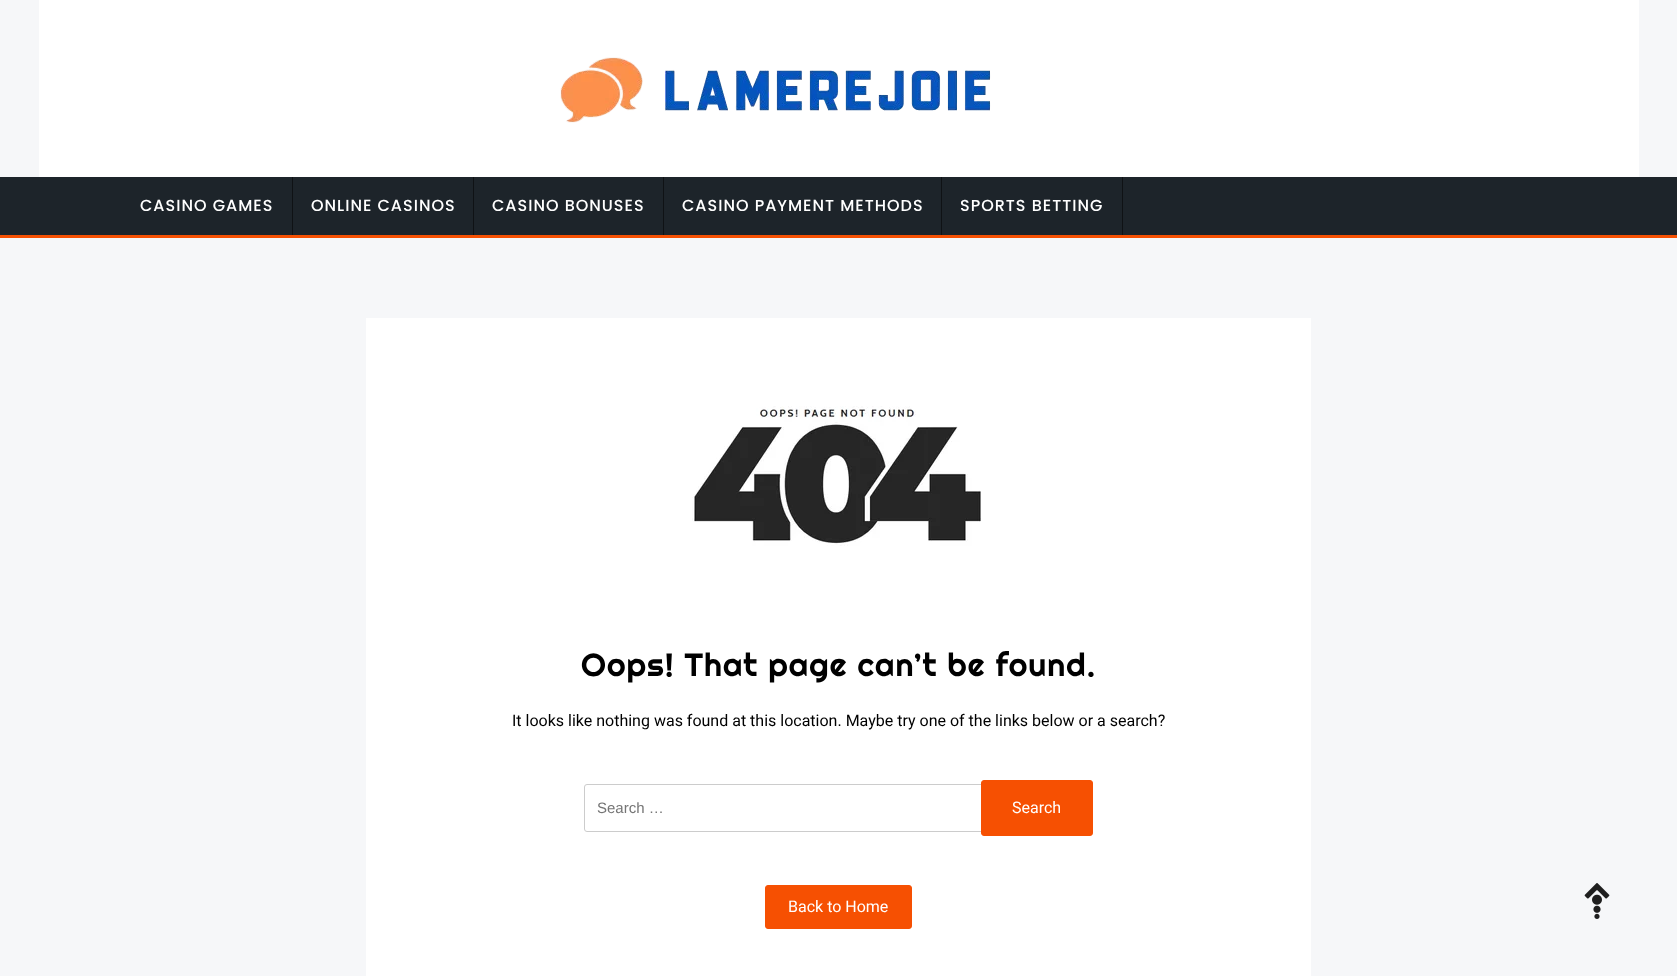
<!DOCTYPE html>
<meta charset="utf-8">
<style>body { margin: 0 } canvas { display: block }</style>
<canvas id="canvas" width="1677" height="976"></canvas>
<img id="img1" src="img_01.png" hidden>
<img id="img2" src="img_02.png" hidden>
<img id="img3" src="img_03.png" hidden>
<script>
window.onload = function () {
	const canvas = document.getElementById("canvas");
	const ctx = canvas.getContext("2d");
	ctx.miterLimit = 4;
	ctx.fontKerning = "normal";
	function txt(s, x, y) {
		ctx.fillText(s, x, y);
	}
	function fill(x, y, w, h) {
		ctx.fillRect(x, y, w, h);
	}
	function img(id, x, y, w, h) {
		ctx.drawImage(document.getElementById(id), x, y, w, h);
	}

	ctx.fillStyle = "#F6F7F9";
	fill(0, 0, 1677, 976);
	ctx.fillStyle = "#FFFFFF";
	fill(39, 0, 1600, 177);
	img("img1", 560, 57, 431, 66);
	ctx.fillStyle = "#1D242A";
	fill(0, 177, 1677, 58);
	ctx.fillStyle = "#F65002";
	fill(0, 235, 1677, 3);
	ctx.fillStyle = "#0F1215";
	fill(292, 177, 1, 58);
	fill(473, 177, 1, 58);
	fill(663, 177, 1, 58);
	fill(941, 177, 1, 58);
	fill(1122, 177, 1, 58);
	ctx.fillStyle = "#FFFFFF";
	fill(366, 318, 945, 658);
	img("img2", 692, 406, 289, 140);
	ctx.beginPath();
	ctx.roundRect(584.5, 784.5, 399, 47, 2.5);
	ctx.strokeStyle = "#CCCCCC";
	ctx.stroke();
	ctx.fillStyle = "#F65002";
	ctx.beginPath();
	ctx.roundRect(981.5, 780.5, 111, 55, 2.5);
	ctx.fill();
	ctx.strokeStyle = "#F65002";
	ctx.stroke();
	ctx.beginPath();
	ctx.roundRect(765.5, 885.5, 146, 43, 2.5);
	ctx.fill();
	ctx.stroke();
	img("img3", 1584, 883, 26, 36);
	ctx.letterSpacing = "1px";
	ctx.font = "500 16px Poppins";
	ctx.fillStyle = "#FFFFFF";
	txt("CASINO GAMES", 140, 211);
	txt("ONLINE CASINOS", 311, 211);
	txt("CASINO BONUSES", 492, 211);
	txt("CASINO PAYMENT METHODS", 682, 211);
	txt("SPORTS BETTING", 960, 211);
	ctx.font = "32px Righteous";
	ctx.fillStyle = "#000000";
	txt("Oops! That page can’t be found.", 581, 676);
	ctx.letterSpacing = "0px";
	ctx.font = "16px Roboto";
	txt("It looks like nothing was found at this location. Maybe try one of the links below or a search?", 512, 726);
	ctx.font = "15px Liberation Sans";
	ctx.fillStyle = "#757575";
	txt("Search …", 597, 813);
	ctx.font = "16px Roboto";
	ctx.fillStyle = "#FFFFFF";
	txt("Search", 1012, 813);
	txt("Back to Home", 788, 912);
};
</script>
